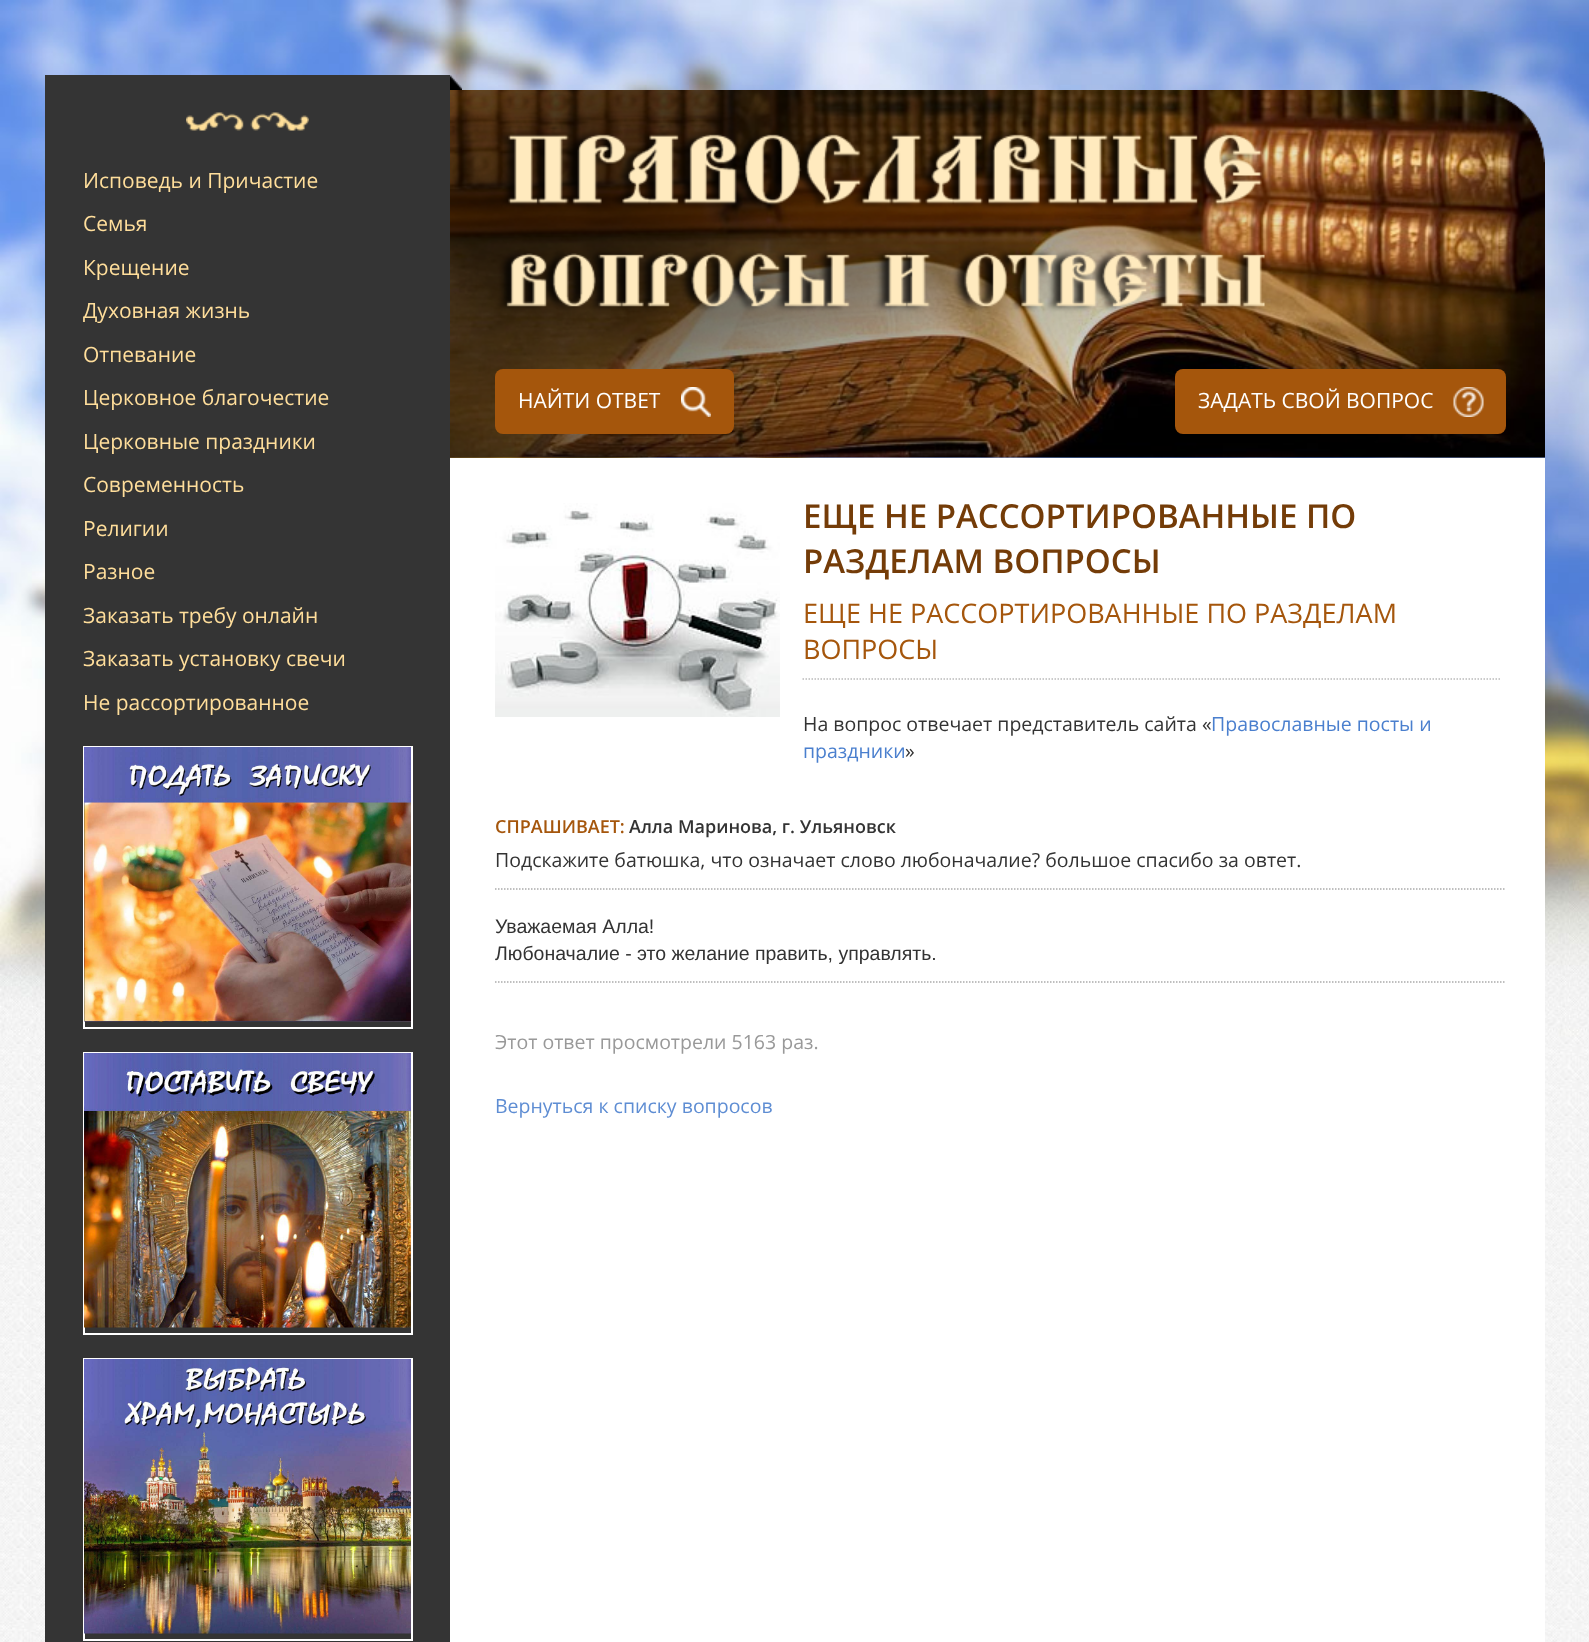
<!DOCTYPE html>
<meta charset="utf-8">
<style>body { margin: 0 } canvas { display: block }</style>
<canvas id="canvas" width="1589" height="1642"></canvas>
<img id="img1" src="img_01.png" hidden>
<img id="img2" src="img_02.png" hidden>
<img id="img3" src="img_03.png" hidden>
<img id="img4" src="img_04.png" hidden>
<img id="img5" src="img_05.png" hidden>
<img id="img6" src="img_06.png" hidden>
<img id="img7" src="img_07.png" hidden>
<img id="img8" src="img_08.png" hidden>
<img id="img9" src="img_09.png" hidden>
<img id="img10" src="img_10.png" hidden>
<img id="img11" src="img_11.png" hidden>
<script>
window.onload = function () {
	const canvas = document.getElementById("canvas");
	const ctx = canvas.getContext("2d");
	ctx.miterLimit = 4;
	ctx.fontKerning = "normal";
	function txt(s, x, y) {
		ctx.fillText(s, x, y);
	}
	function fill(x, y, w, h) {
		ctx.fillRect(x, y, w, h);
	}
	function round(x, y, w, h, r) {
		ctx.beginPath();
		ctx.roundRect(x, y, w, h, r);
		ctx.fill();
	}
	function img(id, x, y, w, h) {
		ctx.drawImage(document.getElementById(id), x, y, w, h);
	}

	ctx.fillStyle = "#FFFFFF";
	fill(0, 0, 1589, 1642);
	img("img1", 0, 1036, 1589, 606);
	img("img2", 0, 0, 1589, 1037);
	ctx.fillStyle = "#343434";
	fill(45, 75, 405, 1567);
	img("img3", 450, 75, 12, 15);
	img("img4", 186, 112, 123, 19);
	ctx.strokeStyle = "#FFFFFF";
	ctx.lineWidth = 2;
	ctx.strokeRect(84, 747, 328, 281);
	img("img5", 84, 747, 327, 275);
	ctx.strokeRect(84, 1053, 328, 281);
	img("img6", 84, 1053, 327, 275);
	ctx.strokeRect(84, 1359, 328, 281);
	img("img7", 84, 1359, 327, 275);
	img("img8", 450, 90, 1095, 368);
	ctx.fillStyle = "#A5560C";
	round(495, 369, 239, 65, 8);
	img("img9", 681, 387, 30, 30);
	round(1175, 369, 331, 65, 8);
	img("img10", 1453, 387, 31, 30);
	ctx.fillStyle = "#FFFFFF";
	fill(450, 458, 1095, 1184);
	img("img11", 495, 503, 285, 214);
	ctx.beginPath();
	ctx.moveTo(802.5, 679);
	ctx.lineTo(1500, 679);
	ctx.strokeStyle = "#BBBBBB";
	ctx.lineWidth = 1.5;
	ctx.setLineDash([1.5, 1.5]);
	ctx.stroke();
	ctx.beginPath();
	ctx.moveTo(495, 889);
	ctx.lineTo(1506, 889);
	ctx.strokeStyle = "#AAAAAA";
	ctx.stroke();
	ctx.beginPath();
	ctx.moveTo(495, 982);
	ctx.lineTo(1506, 982);
	ctx.stroke();
	ctx.font = "21px Open Sans";
	ctx.fillStyle = "#FFDE9B";
	txt("Исповедь и Причастие", 83, 188);
	txt("Семья", 83, 231);
	txt("Крещение", 83, 275);
	txt("Духовная жизнь", 83, 318);
	txt("Отпевание", 83, 362);
	txt("Церковное благочестие", 83, 405);
	txt("Церковные праздники", 83, 449);
	txt("Современность", 83, 492);
	txt("Религии", 83, 536);
	txt("Разное", 83, 579);
	txt("Заказать требу онлайн", 83, 623);
	txt("Заказать установку свечи", 83, 666);
	txt("Не рассортированное", 83, 710);
	ctx.fillStyle = "#FFFFFF";
	txt("НАЙТИ ОТВЕТ", 518, 408);
	txt("ЗАДАТЬ СВОЙ ВОПРОС", 1198, 408);
	ctx.font = "600 33px Open Sans";
	ctx.fillStyle = "#743C08";
	txt("ЕЩЕ НЕ РАССОРТИРОВАННЫЕ ПО", 803, 528);
	txt("РАЗДЕЛАМ ВОПРОСЫ", 803, 573);
	ctx.font = "27px Open Sans";
	ctx.fillStyle = "#A5560C";
	txt("ЕЩЕ НЕ РАССОРТИРОВАННЫЕ ПО РАЗДЕЛАМ", 803, 623);
	txt("ВОПРОСЫ", 803, 659);
	ctx.font = "19.5px Open Sans";
	ctx.fillStyle = "#333333";
	txt("На вопрос отвечает представитель сайта «", 803, 731);
	ctx.fillStyle = "#4A7FCE";
	txt("Православные посты и", 1211, 731);
	txt("праздники", 803, 758);
	ctx.fillStyle = "#333333";
	txt("»", 905, 758);
	ctx.font = "600 18px Open Sans";
	ctx.fillStyle = "#A5560C";
	txt("СПРАШИВАЕТ:", 495, 833);
	ctx.fillStyle = "#333333";
	txt("Алла Маринова, г. Ульяновск", 629, 833);
	ctx.font = "19.5px Open Sans";
	txt("Подскажите батюшка, что означает слово любоначалие? большое спасибо за овтет.", 495, 867);
	ctx.font = "19.5px Liberation Sans";
	txt("Уважаемая Алла!", 495, 933);
	txt("Любоначалие - это желание править, управлять.", 495, 960);
	ctx.font = "19.5px Open Sans";
	ctx.fillStyle = "#999999";
	txt("Этот ответ просмотрели 5163 раз.", 495, 1049);
	ctx.fillStyle = "#5E8DD3";
	txt("Вернуться к списку вопросов", 495, 1113);
};
</script>
